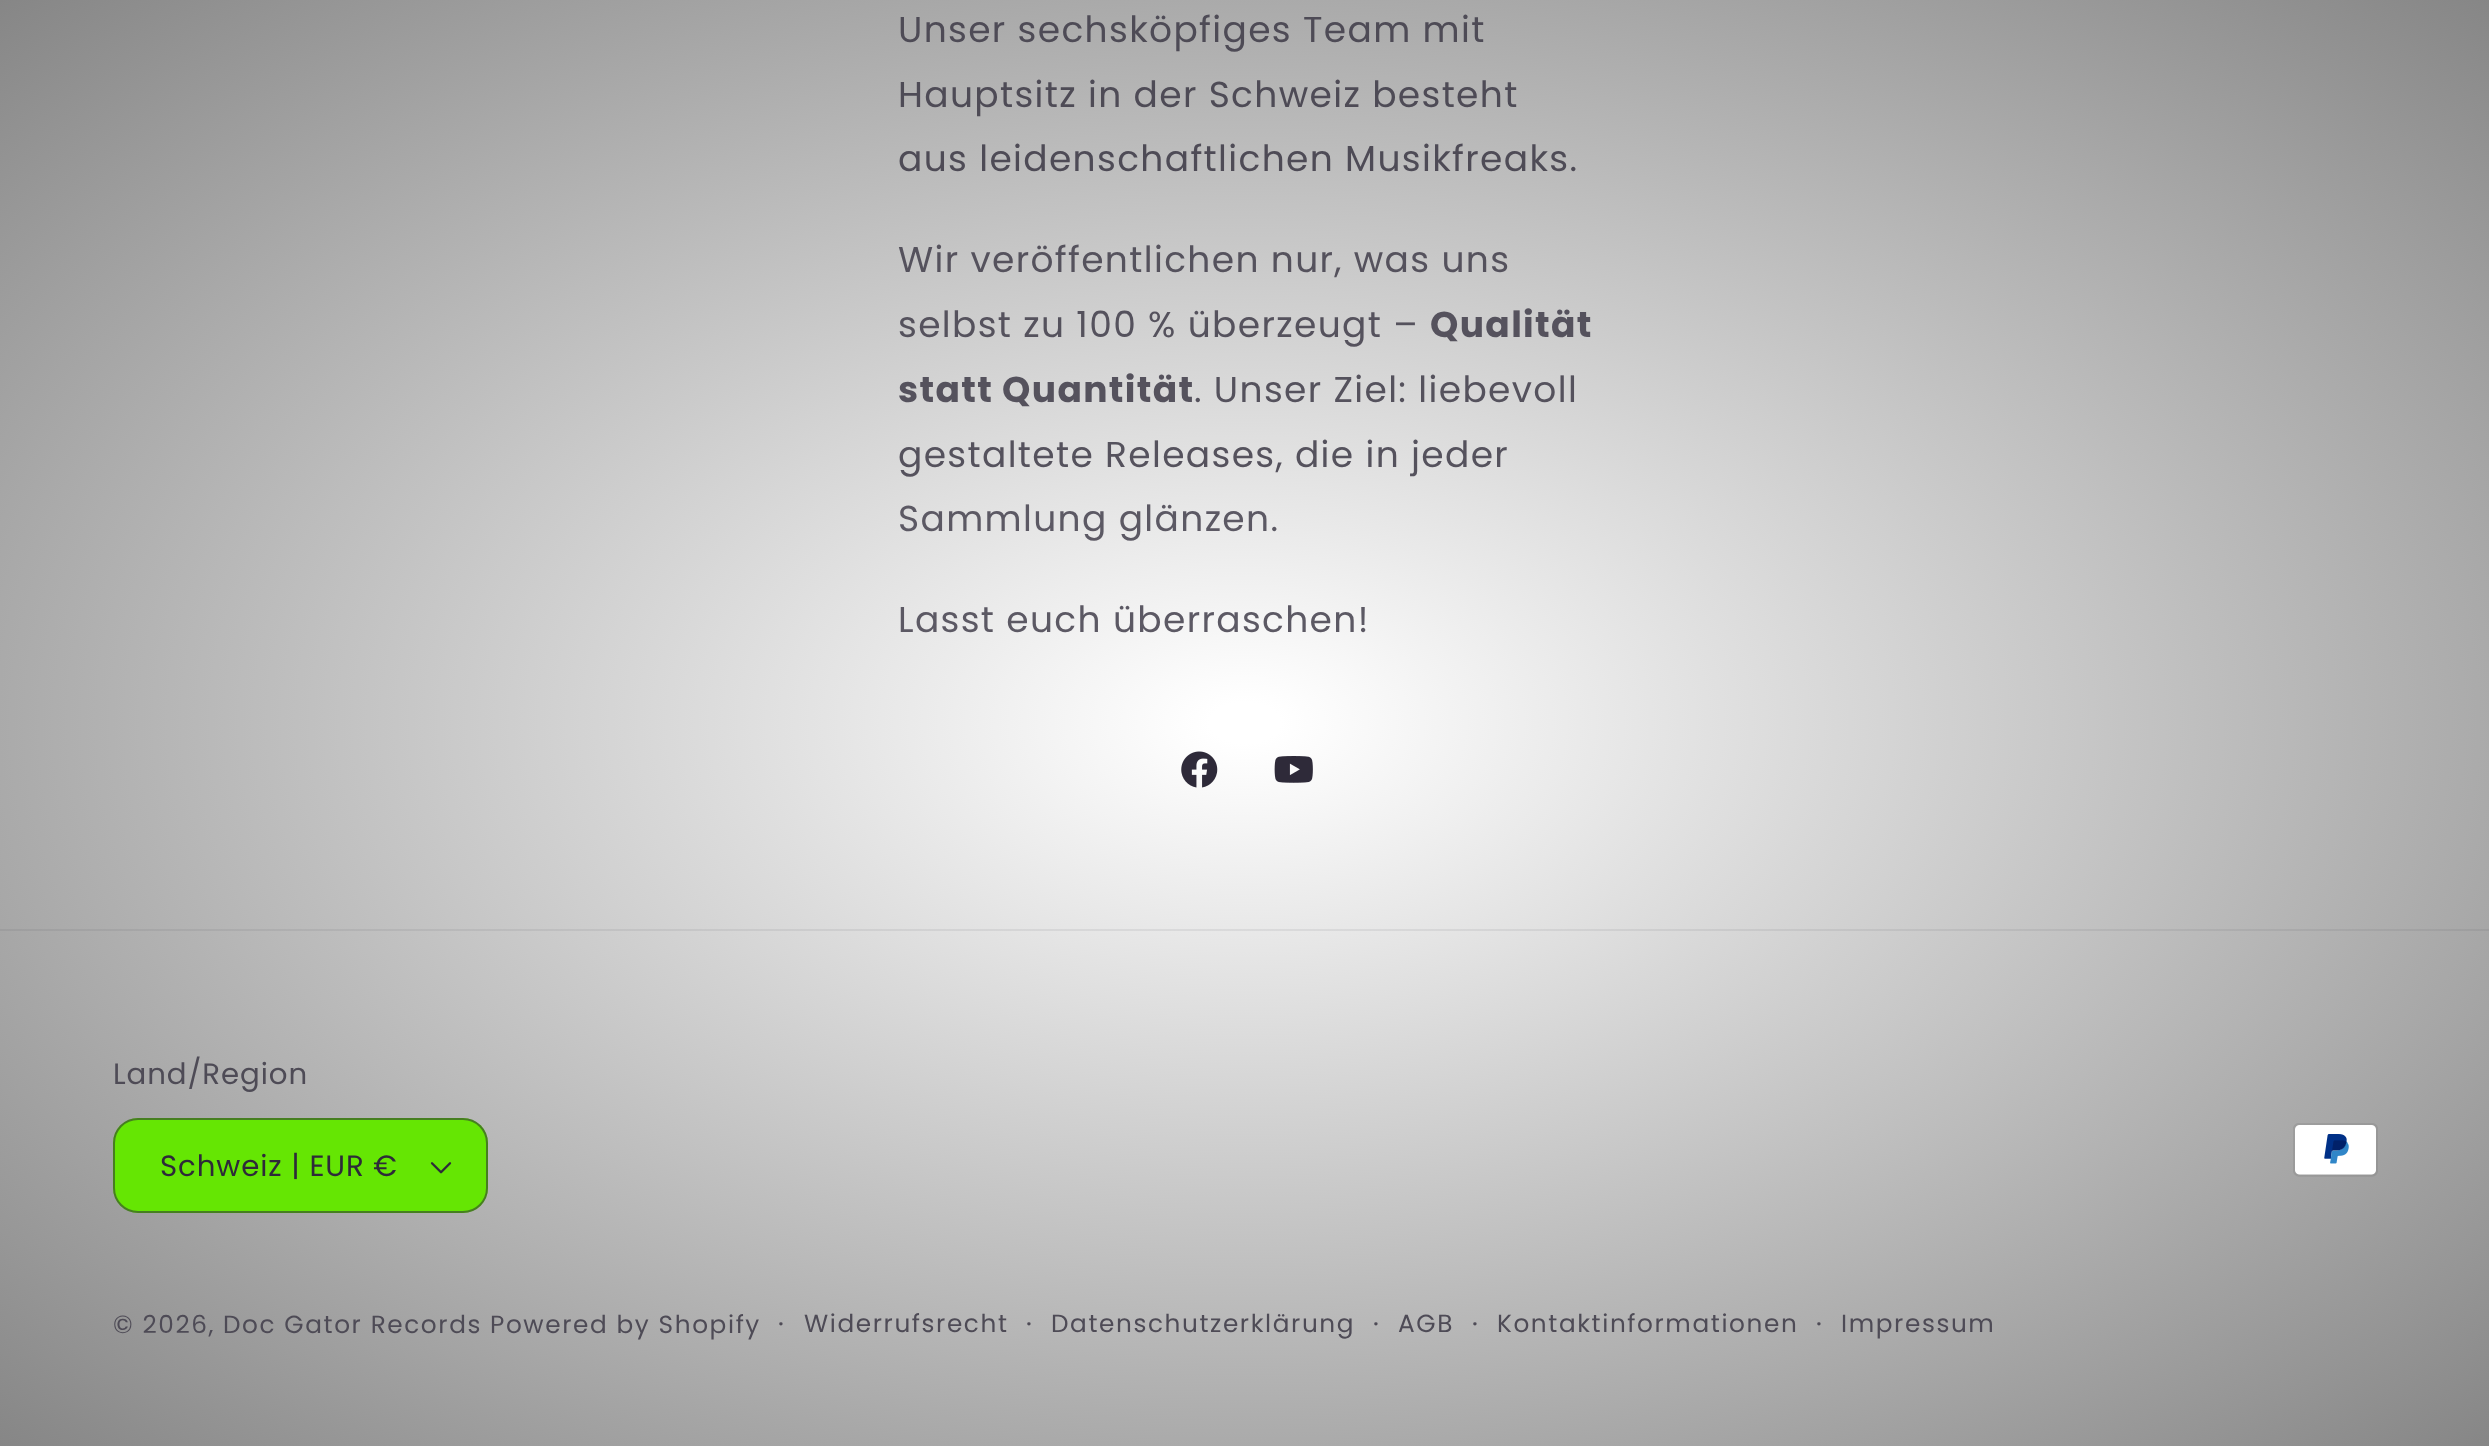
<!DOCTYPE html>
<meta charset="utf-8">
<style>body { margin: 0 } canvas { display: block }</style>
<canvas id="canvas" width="2489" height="1446"></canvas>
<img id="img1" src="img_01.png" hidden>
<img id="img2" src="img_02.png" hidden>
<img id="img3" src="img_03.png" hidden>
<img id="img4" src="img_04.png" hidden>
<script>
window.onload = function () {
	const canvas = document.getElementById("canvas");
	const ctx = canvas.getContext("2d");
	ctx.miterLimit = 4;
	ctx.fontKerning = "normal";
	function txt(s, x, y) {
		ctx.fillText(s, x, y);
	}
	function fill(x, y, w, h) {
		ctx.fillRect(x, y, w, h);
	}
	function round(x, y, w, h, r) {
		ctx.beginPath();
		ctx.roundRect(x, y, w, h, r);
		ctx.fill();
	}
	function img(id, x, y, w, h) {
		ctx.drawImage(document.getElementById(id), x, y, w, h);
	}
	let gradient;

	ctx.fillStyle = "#FFFFFF";
	fill(0, 0, 2489, 1446);
	gradient = ctx.createRadialGradient(1245, 1244.58, 0, 1245, 1244.58, 1761);
	gradient.addColorStop(0.02, "#FFFFFF");
	gradient.addColorStop(1, "#868686");
	ctx.fillStyle = gradient;
	ctx.beginPath();
	ctx.rect(0, 0, 2489, 1446);
	ctx.save();
	ctx.clip();
	ctx.scale(1, 1023 / 1761);
	ctx.fillRect(0, 0, 2489, 2490);
	ctx.restore();
	gradient = ctx.createRadialGradient(1245, 1244.58, 0, 1245, 1244.58, 1761);
	gradient.addColorStop(0.02, "#EEEEEF");
	gradient.addColorStop(1, "#7F7F80");
	ctx.fillStyle = gradient;
	ctx.beginPath();
	ctx.rect(0, 929, 2489, 2);
	ctx.save();
	ctx.clip();
	ctx.scale(1, 1023 / 1761);
	ctx.fillRect(0, 0, 2489, 2490);
	ctx.restore();
	img("img1", 1181, 751, 37, 37);
	img("img2", 1274, 756, 39, 27);
	ctx.fillStyle = "#65E603";
	round(113, 1118, 375, 95, 25);
	img("img3", 430, 1162, 22, 12);
	ctx.beginPath();
	ctx.roundRect(114, 1119, 373, 93, 24);
	ctx.strokeStyle = "rgba(46, 42, 57, 0.55)";
	ctx.lineWidth = 2;
	ctx.stroke();
	img("img4", 2293, 1123, 85, 54);
	ctx.letterSpacing = "1.35px";
	ctx.font = "36px Poppins";
	ctx.fillStyle = "#4E4B56";
	txt("Unser sechsköpfiges Team mit", 898, 42);
	txt("Hauptsitz in der Schweiz besteht", 898, 107);
	txt("aus leidenschaftlichen Musikfreaks.", 898, 171);
	ctx.fillStyle = "#55525D";
	txt("Wir veröffentlichen nur, was uns", 898, 272);
	txt("selbst zu 100 % überzeugt –", 898, 337);
	ctx.font = "bold 36px Poppins";
	txt("Qualität", 1430, 337);
	txt("statt Quantität", 898, 402);
	ctx.font = "36px Poppins";
	txt(". Unser Ziel: liebevoll", 1194, 402);
	txt("gestaltete Releases, die in jeder", 898, 467);
	ctx.fillStyle = "#5C5964";
	txt("Sammlung glänzen.", 898, 531);
	txt("Lasst euch überraschen!", 898, 632);
	ctx.letterSpacing = "0.9px";
	ctx.font = "29.25px Poppins";
	ctx.fillStyle = "#4E4B56";
	txt("Land/Region", 113, 1084);
	ctx.fillStyle = "#2E2A39";
	txt("Schweiz | EUR €", 160, 1176);
	ctx.letterSpacing = "1.6px";
	ctx.font = "24.75px Poppins";
	ctx.fillStyle = "#4E4B56";
	txt("© 2026,", 113, 1333);
	txt("Doc Gator Records", 223, 1333);
	txt("Powered by Shopify", 490, 1333);
	ctx.font = "27px Poppins";
	txt("·", 778, 1333);
	ctx.font = "24.75px Poppins";
	txt("Widerrufsrecht", 804, 1332);
	ctx.font = "27px Poppins";
	txt("·", 1026, 1333);
	ctx.font = "24.75px Poppins";
	txt("Datenschutzerklärung", 1051, 1332);
	ctx.font = "27px Poppins";
	txt("·", 1373, 1333);
	ctx.font = "24.75px Poppins";
	txt("AGB", 1398, 1332);
	ctx.font = "27px Poppins";
	txt("·", 1472, 1333);
	ctx.font = "24.75px Poppins";
	txt("Kontaktinformationen", 1497, 1332);
	ctx.font = "27px Poppins";
	txt("·", 1816, 1333);
	ctx.font = "24.75px Poppins";
	txt("Impressum", 1841, 1332);
};
</script>
